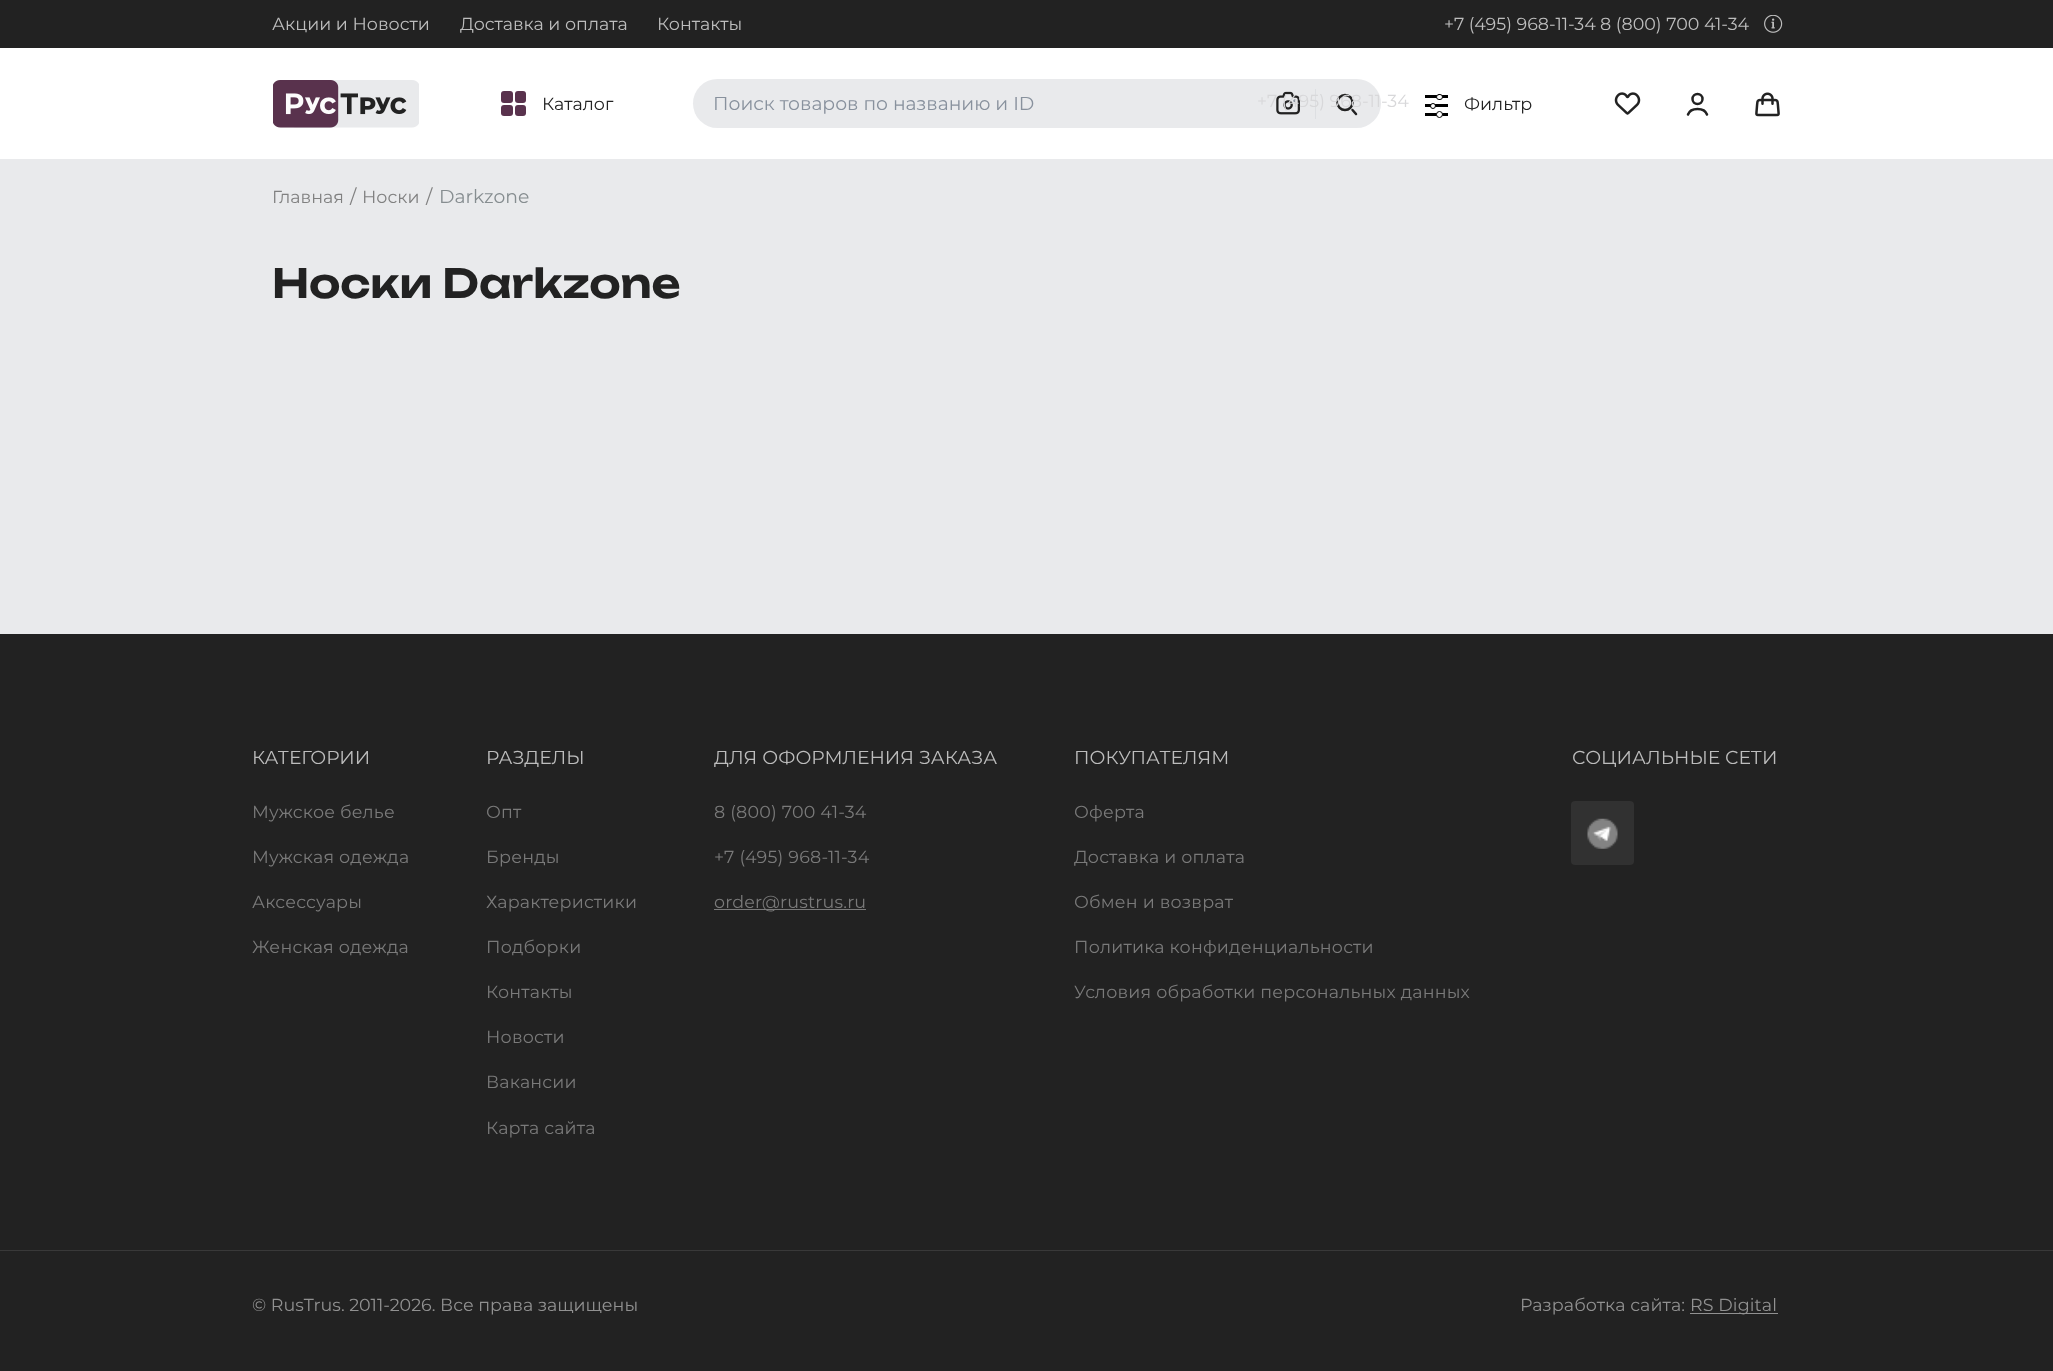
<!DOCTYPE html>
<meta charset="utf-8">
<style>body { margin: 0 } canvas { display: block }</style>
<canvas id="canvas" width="2053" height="1371"></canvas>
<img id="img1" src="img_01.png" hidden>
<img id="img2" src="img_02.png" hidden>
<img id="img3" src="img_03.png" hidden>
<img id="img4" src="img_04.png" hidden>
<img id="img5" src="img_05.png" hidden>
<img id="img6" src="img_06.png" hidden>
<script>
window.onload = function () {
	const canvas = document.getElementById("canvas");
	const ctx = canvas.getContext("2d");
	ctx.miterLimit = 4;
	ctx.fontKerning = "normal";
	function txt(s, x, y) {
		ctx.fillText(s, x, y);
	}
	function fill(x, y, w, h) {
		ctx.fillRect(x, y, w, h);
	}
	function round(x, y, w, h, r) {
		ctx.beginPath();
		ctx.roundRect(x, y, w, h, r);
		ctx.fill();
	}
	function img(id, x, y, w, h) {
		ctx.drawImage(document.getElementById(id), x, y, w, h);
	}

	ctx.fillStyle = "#E9EAEC";
	fill(0, 0, 2053, 1371);
	ctx.fillStyle = "#222222";
	fill(0, 0, 2053, 48);
	img("img1", 1764, 15, 19, 18);
	ctx.fillStyle = "#FFFFFF";
	fill(0, 48, 2053, 111);
	img("img2", 273, 80, 146, 48);
	ctx.fillStyle = "#59324D";
	round(501, 91, 12, 12, 3);
	round(515, 91, 11, 12, 3);
	round(501, 105, 12, 11, 3);
	round(515, 105, 11, 11, 3);
	ctx.fillStyle = "#E9EAEC";
	round(693, 79, 688, 49, 24.5);
	img("img3", 1276, 91, 24, 24);
	ctx.fillStyle = "#DDDFE2";
	fill(1315, 89, 1, 30);
	ctx.beginPath();
	ctx.arc(1345, 102.5, 7.5, 0, Math.PI * 2);
	ctx.strokeStyle = "#222222";
	ctx.lineWidth = 2.5;
	ctx.stroke();
	ctx.beginPath();
	ctx.moveTo(1356, 114);
	ctx.lineTo(1352.5, 110);
	ctx.lineCap = "round";
	ctx.stroke();
	ctx.fillStyle = "#000000";
	fill(1425, 95, 23, 3);
	ctx.fillStyle = "#FFFFFF";
	ctx.beginPath();
	ctx.roundRect(1436.5, 94.5, 6, 5, 2.5);
	ctx.fill();
	ctx.strokeStyle = "#000000";
	ctx.lineWidth = 1;
	ctx.stroke();
	ctx.fillStyle = "#000000";
	fill(1425, 104, 23, 3);
	ctx.fillStyle = "#FFFFFF";
	ctx.beginPath();
	ctx.arc(1433, 106, 2.5, 0, Math.PI * 2);
	ctx.fill();
	ctx.stroke();
	ctx.fillStyle = "#000000";
	fill(1425, 113, 23, 3);
	ctx.fillStyle = "#FFFFFF";
	ctx.beginPath();
	ctx.arc(1439.5, 114.5, 3, 0, Math.PI * 2);
	ctx.fill();
	ctx.stroke();
	img("img4", 1614, 92, 27, 23);
	ctx.beginPath();
	ctx.moveTo(1707, 114.5);
	ctx.bezierCurveTo(1704.5, 107, 1690.5, 107, 1688, 114.5);
	ctx.strokeStyle = "#222222";
	ctx.lineWidth = 2.5;
	ctx.stroke();
	ctx.beginPath();
	ctx.arc(1697.5, 99, 5, 0, Math.PI * 2);
	ctx.stroke();
	img("img5", 1755, 92, 25, 25);
	ctx.fillStyle = "#222222";
	fill(0, 634, 2053, 737);
	ctx.fillStyle = "#7A7A7A";
	fill(714, 909, 152, 1);
	ctx.fillStyle = "#313131";
	round(1571, 801, 63, 64, 4);
	img("img6", 1587, 818, 31, 31);
	ctx.fillStyle = "#393939";
	fill(0, 1250, 2053, 1);
	ctx.fillStyle = "#919191";
	fill(1690, 1313, 88, 1);
	ctx.font = "17.5px Montserrat";
	ctx.fillStyle = "#BDBDBD";
	txt("Акции и Новости", 272, 30);
	txt("Доставка и оплата", 460, 30);
	txt("Контакты", 657, 30);
	txt("+7 (495) 968-11-34", 1444, 30);
	txt("8 (800) 700 41-34", 1600, 30);
	ctx.fillStyle = "#D8D8DA";
	txt("+7 (495) 968-11-34", 1257, 107);
	ctx.fillStyle = "#222222";
	txt("Каталог", 542, 110);
	ctx.font = "18.75px Montserrat";
	ctx.fillStyle = "#88919D";
	txt("Поиск товаров по названию и ID", 713, 110);
	ctx.font = "17.5px Montserrat";
	ctx.fillStyle = "#222222";
	txt("Фильтр", 1464, 110);
	ctx.fillStyle = "#808080";
	txt("Главная", 272, 203);
	ctx.font = "18.75px Montserrat";
	txt("/", 350, 203);
	ctx.font = "17.5px Montserrat";
	txt("Носки", 362, 203);
	ctx.font = "18.75px Montserrat";
	txt("/", 426, 203);
	ctx.fillStyle = "#868D90";
	txt("Darkzone", 439, 203);
	ctx.font = "600 40px Unbounded";
	ctx.fillStyle = "#222222";
	txt("Носки Darkzone", 272, 298);
	ctx.font = "18.75px Montserrat";
	ctx.fillStyle = "#BDBDBD";
	txt("КАТЕГОРИИ", 252, 764);
	ctx.letterSpacing = "0.2px";
	ctx.font = "17.5px Montserrat";
	ctx.fillStyle = "#7A7A7A";
	txt("Мужское белье", 252, 818);
	txt("Мужская одежда", 252, 863);
	txt("Аксессуары", 252, 908);
	txt("Женская одежда", 252, 953);
	ctx.letterSpacing = "0px";
	ctx.font = "18.75px Montserrat";
	ctx.fillStyle = "#BDBDBD";
	txt("РАЗДЕЛЫ", 486, 764);
	ctx.letterSpacing = "0.2px";
	ctx.font = "17.5px Montserrat";
	ctx.fillStyle = "#7A7A7A";
	txt("Опт", 486, 818);
	txt("Бренды", 486, 863);
	txt("Характеристики", 486, 908);
	txt("Подборки", 486, 953);
	txt("Контакты", 486, 998);
	txt("Новости", 486, 1043);
	txt("Вакансии", 486, 1088);
	txt("Карта сайта", 486, 1134);
	ctx.letterSpacing = "0px";
	ctx.font = "18.75px Montserrat";
	ctx.fillStyle = "#BDBDBD";
	txt("ДЛЯ ОФОРМЛЕНИЯ ЗАКАЗА", 714, 764);
	ctx.letterSpacing = "0.2px";
	ctx.font = "17.5px Montserrat";
	ctx.fillStyle = "#7A7A7A";
	txt("8 (800) 700 41-34", 714, 818);
	txt("+7 (495) 968-11-34", 714, 863);
	txt("order@rustrus.ru", 714, 908);
	ctx.letterSpacing = "0px";
	ctx.font = "18.75px Montserrat";
	ctx.fillStyle = "#BDBDBD";
	txt("ПОКУПАТЕЛЯМ", 1074, 764);
	ctx.letterSpacing = "0.2px";
	ctx.font = "17.5px Montserrat";
	ctx.fillStyle = "#7A7A7A";
	txt("Оферта", 1074, 818);
	txt("Доставка и оплата", 1074, 863);
	txt("Обмен и возврат", 1074, 908);
	txt("Политика конфиденциальности", 1074, 953);
	txt("Условия обработки персональных данных", 1074, 998);
	ctx.letterSpacing = "0px";
	ctx.font = "18.75px Montserrat";
	ctx.fillStyle = "#BDBDBD";
	txt("СОЦИАЛЬНЫЕ СЕТИ", 1572, 764);
	ctx.font = "17.5px Montserrat";
	ctx.fillStyle = "#919191";
	txt("© RusTrus. 2011-2026. Все права защищены", 252, 1311);
	ctx.letterSpacing = "0.1px";
	txt("Разработка сайта:", 1520, 1311);
	txt("RS Digital", 1690, 1311);
};
</script>
